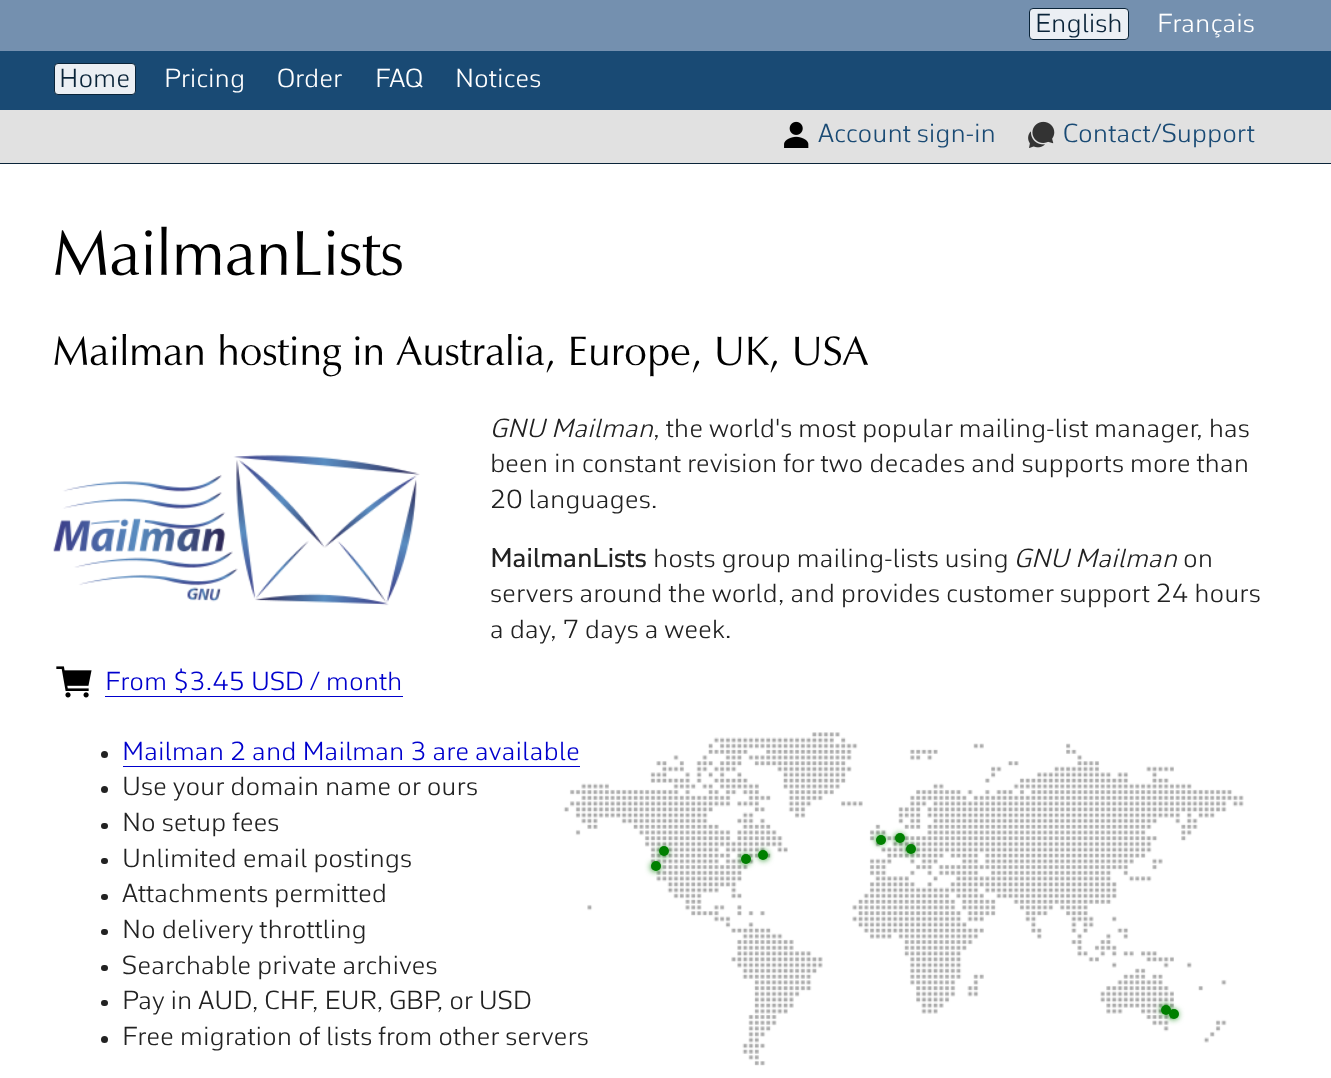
<!DOCTYPE html>
<meta charset="utf-8">
<style>body { margin: 0 } canvas { display: block }</style>
<canvas id="canvas" width="1331" height="1078"></canvas>
<img id="img1" src="img_01.png" hidden>
<img id="img2" src="img_02.png" hidden>
<img id="img3" src="img_03.png" hidden>
<img id="img4" src="img_04.png" hidden>
<img id="img5" src="img_05.png" hidden>
<script>
window.onload = function () {
	const canvas = document.getElementById("canvas");
	const ctx = canvas.getContext("2d");
	ctx.miterLimit = 4;
	ctx.fontKerning = "normal";
	function txt(s, x, y) {
		ctx.fillText(s, x, y);
	}
	function fill(x, y, w, h) {
		ctx.fillRect(x, y, w, h);
	}
	function round(x, y, w, h, r) {
		ctx.beginPath();
		ctx.roundRect(x, y, w, h, r);
		ctx.fill();
	}
	function img(id, x, y, w, h) {
		ctx.drawImage(document.getElementById(id), x, y, w, h);
	}

	ctx.fillStyle = "#E1E1E1";
	fill(0, 0, 1331, 1078);
	ctx.fillStyle = "#7490AF";
	fill(0, 0, 1331, 51);
	ctx.fillStyle = "#EBEFF4";
	ctx.beginPath();
	ctx.roundRect(1029.5, 8.5, 99, 31, 3.5);
	ctx.fill();
	ctx.strokeStyle = "#0A2439";
	ctx.stroke();
	ctx.fillStyle = "#194A74";
	fill(0, 51, 1331, 59);
	ctx.fillStyle = "#EBEFF4";
	ctx.beginPath();
	ctx.roundRect(54.5, 63.5, 81, 31, 3.5);
	ctx.fill();
	ctx.stroke();
	ctx.fillStyle = "#0A2439";
	fill(0, 163, 1331, 1);
	img("img1", 784, 121, 25, 27);
	img("img2", 1028, 121, 27, 27);
	ctx.fillStyle = "#FFFFFF";
	fill(0, 164, 1331, 914);
	img("img3", 53, 454, 367, 152);
	img("img4", 56, 666, 36, 32);
	ctx.fillStyle = "#0000CD";
	fill(105, 696, 298, 1);
	ctx.fillStyle = "#222222";
	ctx.beginPath();
	ctx.arc(104.5, 754.5, 3.5, 0, Math.PI * 2);
	ctx.fill();
	ctx.fillStyle = "#0000CD";
	fill(123, 766, 457, 1);
	ctx.fillStyle = "#222222";
	ctx.beginPath();
	ctx.arc(104.5, 789.5, 3.5, 0, Math.PI * 2);
	ctx.fill();
	round(101, 823, 7, 6, 3);
	round(101, 858, 7, 6, 3);
	round(101, 894, 7, 6, 3);
	round(101, 929, 7, 6, 3);
	round(101, 965, 7, 6, 3);
	round(101, 1000, 7, 6, 3);
	ctx.beginPath();
	ctx.arc(104.5, 1039.5, 3.5, 0, Math.PI * 2);
	ctx.fill();
	ctx.font = "300 26.45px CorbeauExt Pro";
	ctx.fillStyle = "#0A2439";
	txt("English", 1035, 32);
	ctx.fillStyle = "#FFFFFF";
	txt("Français", 1157, 32);
	ctx.fillStyle = "#0A2439";
	txt("Home", 59, 87);
	ctx.fillStyle = "#FFFFFF";
	txt("Pricing", 164, 87);
	txt("Order", 277, 87);
	txt("FAQ", 375, 87);
	txt("Notices", 455, 87);
	ctx.fillStyle = "#194A74";
	txt("Account sign-in", 818, 142);
	txt("Contact/Support", 1063, 142);
	ctx.font = "64.5px 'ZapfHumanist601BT'";
	ctx.fillStyle = "#000000";
	txt("MailmanLists", 53, 275);
	ctx.font = "41.4px 'ZapfHumanist601BT'";
	txt("Mailman hosting in Australia, Europe, UK, USA", 53, 365);
	ctx.font = "italic 300 26.45px CorbeauExt Pro";
	ctx.fillStyle = "#222222";
	txt("GNU Mailman", 490, 437);
	ctx.font = "300 26.45px CorbeauExt Pro";
	txt(", the world's most popular mailing-list manager, has", 653, 437);
	txt("been in constant revision for two decades and supports more than", 490, 472);
	txt("20 languages.", 490, 508);
	ctx.font = "bold 26.45px CorbeauExt Pro";
	txt("MailmanLists", 490, 567);
	ctx.font = "300 26.45px CorbeauExt Pro";
	txt("hosts group mailing-lists using", 653, 567);
	ctx.font = "italic 300 26.45px CorbeauExt Pro";
	txt("GNU Mailman", 1014, 567);
	ctx.font = "300 26.45px CorbeauExt Pro";
	txt("on", 1183, 567);
	txt("servers around the world, and provides customer support 24 hours", 490, 602);
	txt("a day, 7 days a week.", 490, 638);
	ctx.fillStyle = "#0000CD";
	txt("From $3.45 USD / month", 105, 690);
	txt("Mailman 2 and Mailman 3 are available", 122, 760);
	ctx.fillStyle = "#222222";
	txt("Use your domain name or ours", 122, 795);
	txt("No setup fees", 122, 831);
	txt("Unlimited email postings", 122, 867);
	txt("Attachments permitted", 122, 902);
	txt("No delivery throttling", 122, 938);
	txt("Searchable private archives", 122, 974);
	txt("Pay in AUD, CHF, EUR, GBP, or USD", 122, 1009);
	txt("Free migration of lists from other servers", 122, 1045);
	img("img5", 563, 732, 681, 334);
	ctx.fillStyle = "#008000";
	ctx.filter = "blur(3px)";
	ctx.beginPath();
	ctx.roundRect(876, 835, 9, 9, 4.5);
	ctx.fill();
	ctx.filter = "none";
	ctx.beginPath();
	ctx.arc(881, 840, 5, 0, Math.PI * 2);
	ctx.fill();
	ctx.filter = "blur(3px)";
	ctx.beginPath();
	ctx.roundRect(759, 851, 9, 9, 4.5);
	ctx.fill();
	ctx.filter = "none";
	ctx.beginPath();
	ctx.arc(763, 855, 5, 0, Math.PI * 2);
	ctx.fill();
	ctx.filter = "blur(3px)";
	ctx.beginPath();
	ctx.roundRect(741, 855, 9, 9, 4.5);
	ctx.fill();
	ctx.filter = "none";
	ctx.beginPath();
	ctx.arc(746, 859, 5, 0, Math.PI * 2);
	ctx.fill();
	ctx.filter = "blur(3px)";
	ctx.beginPath();
	ctx.roundRect(906, 845, 9, 9, 4.5);
	ctx.fill();
	ctx.filter = "none";
	ctx.beginPath();
	ctx.arc(911, 849, 5, 0, Math.PI * 2);
	ctx.fill();
	ctx.filter = "blur(3px)";
	ctx.beginPath();
	ctx.roundRect(895, 834, 9, 9, 4.5);
	ctx.fill();
	ctx.filter = "none";
	ctx.beginPath();
	ctx.arc(900, 838, 5, 0, Math.PI * 2);
	ctx.fill();
	ctx.filter = "blur(3px)";
	ctx.beginPath();
	ctx.roundRect(651, 863, 9, 8, 4);
	ctx.fill();
	ctx.filter = "none";
	ctx.beginPath();
	ctx.arc(656, 866, 5, 0, Math.PI * 2);
	ctx.fill();
	ctx.filter = "blur(3px)";
	ctx.beginPath();
	ctx.roundRect(659, 848, 9, 8, 4);
	ctx.fill();
	ctx.filter = "none";
	ctx.beginPath();
	ctx.arc(664, 851, 5, 0, Math.PI * 2);
	ctx.fill();
	ctx.filter = "blur(3px)";
	ctx.beginPath();
	ctx.roundRect(1169, 1010, 9, 9, 4.5);
	ctx.fill();
	ctx.filter = "none";
	ctx.beginPath();
	ctx.arc(1174, 1014, 5, 0, Math.PI * 2);
	ctx.fill();
	ctx.filter = "blur(3px)";
	ctx.beginPath();
	ctx.roundRect(1161, 1005, 9, 9, 4.5);
	ctx.fill();
	ctx.filter = "none";
	ctx.beginPath();
	ctx.arc(1166, 1010, 5, 0, Math.PI * 2);
	ctx.fill();
};
</script>
